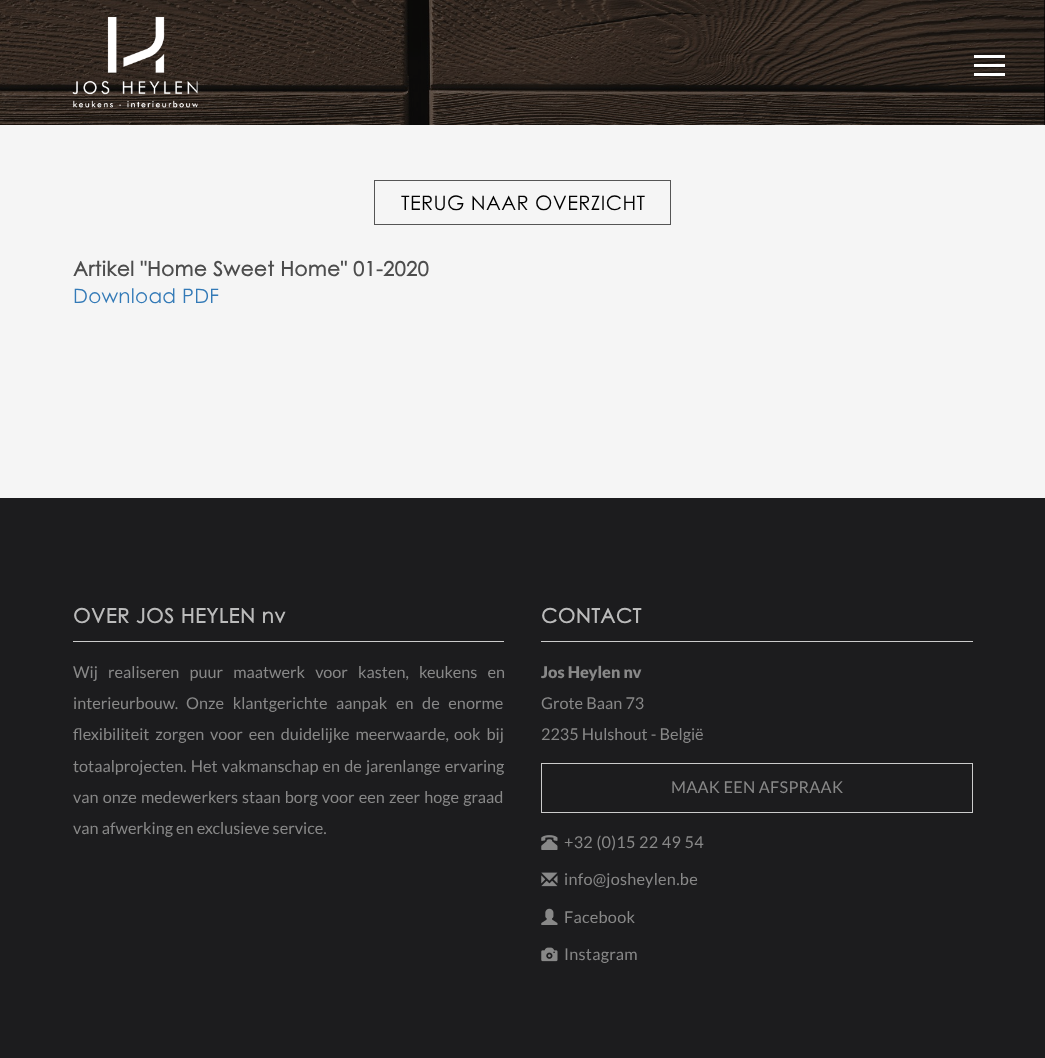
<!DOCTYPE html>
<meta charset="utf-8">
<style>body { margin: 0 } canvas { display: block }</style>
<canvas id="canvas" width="1045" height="1058"></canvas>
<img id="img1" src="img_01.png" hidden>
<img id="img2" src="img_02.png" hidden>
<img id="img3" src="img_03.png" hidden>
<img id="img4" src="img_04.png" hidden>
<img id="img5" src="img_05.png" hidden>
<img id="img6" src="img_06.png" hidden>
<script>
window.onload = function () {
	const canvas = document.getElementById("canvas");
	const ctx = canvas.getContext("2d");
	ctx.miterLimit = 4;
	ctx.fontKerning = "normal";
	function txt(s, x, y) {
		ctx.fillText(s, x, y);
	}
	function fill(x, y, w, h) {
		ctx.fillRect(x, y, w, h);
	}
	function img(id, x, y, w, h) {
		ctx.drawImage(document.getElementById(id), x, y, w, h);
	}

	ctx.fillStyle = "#1C1C1E";
	fill(0, 0, 1045, 1058);
	img("img1", 0, 0, 1045, 125);
	img("img2", 72, 17, 126, 91);
	ctx.fillStyle = "#FFFFFF";
	fill(974, 64, 31, 3);
	fill(974, 55, 31, 3);
	fill(974, 73, 31, 3);
	ctx.fillStyle = "#F5F5F5";
	fill(0, 125, 1045, 373);
	ctx.strokeStyle = "#555555";
	ctx.strokeRect(374.5, 180.5, 296, 44);
	ctx.fillStyle = "#CCCCCC";
	fill(73, 641, 431, 1);
	fill(541, 641, 432, 1);
	ctx.strokeStyle = "#CCCCCC";
	ctx.strokeRect(541.5, 763.5, 431, 49);
	img("img3", 541, 835, 17, 15);
	img("img4", 541, 872, 17, 15);
	img("img5", 541, 908, 17, 17);
	img("img6", 541, 947, 17, 15);
	ctx.letterSpacing = "0.4px";
	ctx.font = "20px Century Gothic";
	ctx.fillStyle = "#000000";
	txt("TERUG NAAR OVERZICHT", 401, 210);
	ctx.font = "bold 20px Century Gothic";
	ctx.fillStyle = "#4D4D4D";
	txt("Artikel \"Home Sweet Home\" 01-2020", 73, 276);
	ctx.letterSpacing = "0.25px";
	ctx.font = "20px Century Gothic";
	ctx.fillStyle = "#337AB7";
	txt("Download PDF", 73, 303);
	ctx.letterSpacing = "0.6px";
	ctx.font = "bold 20px Century Gothic";
	ctx.fillStyle = "#BBBBBB";
	txt("OVER JOS HEYLEN nv", 73, 623);
	ctx.letterSpacing = "0px";
	ctx.wordSpacing = "7px";
	ctx.font = "16.25px Lato";
	ctx.fillStyle = "#888888";
	txt("Wij realiseren puur maatwerk voor kasten, keukens en", 73, 678);
	ctx.wordSpacing = "0px";
	txt("interieurbouw.", 73, 709);
	ctx.wordSpacing = "5.5px";
	txt("Onze klantgerichte aanpak en de enorme", 186, 709);
	ctx.wordSpacing = "2.75px";
	txt("flexibiliteit zorgen voor een duidelijke meerwaarde,", 73, 740);
	txt("ook bij", 454, 740);
	ctx.wordSpacing = "1px";
	txt("totaalprojecten. Het vakmanschap en de jarenlange ervaring", 73, 772);
	txt("van onze medewerkers", 73, 803);
	txt("staan borg voor een zeer hoge graad", 242, 803);
	ctx.wordSpacing = "0px";
	txt("van afwerking en exclusieve service.", 73, 834);
	ctx.letterSpacing = "0.6px";
	ctx.font = "bold 20px Century Gothic";
	ctx.fillStyle = "#BBBBBB";
	txt("CONTACT", 541, 623);
	ctx.letterSpacing = "0px";
	ctx.font = "900 16.25px Lato";
	ctx.fillStyle = "#888888";
	txt("Jos Heylen nv", 541, 678);
	ctx.font = "16.25px Lato";
	txt("Grote Baan 73", 541, 709);
	txt("2235 Hulshout - België", 541, 740);
	ctx.letterSpacing = "0.25px";
	txt("MAAK EEN AFSPRAAK", 671, 793);
	txt("+32 (0)15 22 49 54", 564, 848);
	txt("info@josheylen.be", 564, 885);
	txt("Facebook", 564, 923);
	txt("Instagram", 564, 960);
};
</script>
